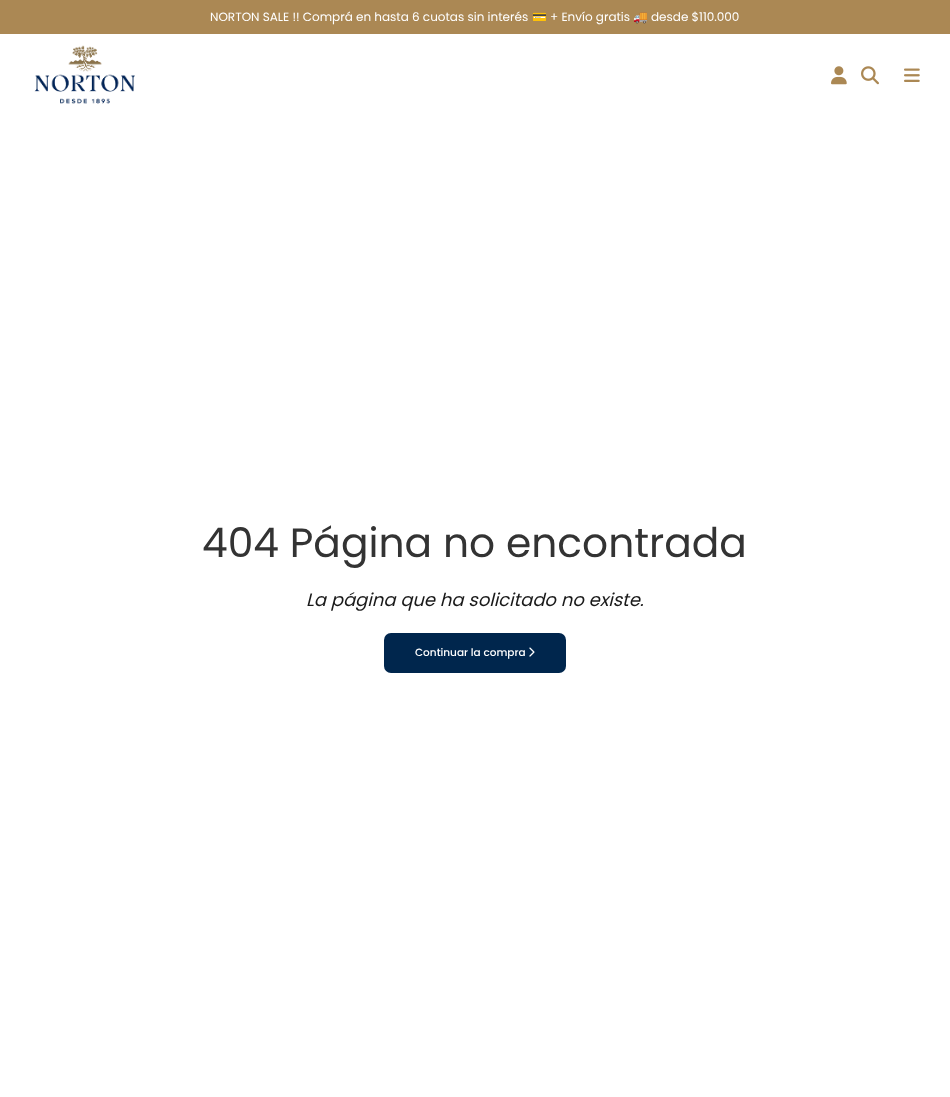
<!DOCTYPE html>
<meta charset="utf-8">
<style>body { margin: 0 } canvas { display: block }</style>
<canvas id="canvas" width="950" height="1097"></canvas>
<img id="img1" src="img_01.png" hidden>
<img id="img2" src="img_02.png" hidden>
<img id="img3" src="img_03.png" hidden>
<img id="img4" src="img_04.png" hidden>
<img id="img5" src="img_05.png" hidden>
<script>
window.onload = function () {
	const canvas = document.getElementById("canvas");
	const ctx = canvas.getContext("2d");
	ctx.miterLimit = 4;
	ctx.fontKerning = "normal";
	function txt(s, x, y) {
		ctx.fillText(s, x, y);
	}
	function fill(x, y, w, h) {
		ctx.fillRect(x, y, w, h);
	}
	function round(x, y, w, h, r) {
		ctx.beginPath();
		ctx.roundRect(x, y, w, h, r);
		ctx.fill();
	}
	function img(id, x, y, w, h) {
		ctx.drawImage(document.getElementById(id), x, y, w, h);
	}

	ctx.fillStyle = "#FFFFFF";
	fill(0, 0, 950, 1097);
	ctx.fillStyle = "#AB8854";
	fill(0, 0, 950, 34);
	img("img1", 34, 45, 101, 59);
	img("img2", 831, 66, 16, 19);
	img("img3", 861, 66, 18, 19);
	img("img4", 904, 68, 16, 14);
	ctx.fillStyle = "#00264D";
	round(384, 633, 182, 40, 7);
	img("img5", 529, 647, 6, 10);
	ctx.font = "12px Poppins";
	ctx.fillStyle = "#FFFFFF";
	txt("NORTON SALE !! Comprá en hasta 6 cuotas sin interés", 210, 21);
	ctx.font = "12px Noto Color Emoji";
	txt("💳", 532, 21);
	ctx.font = "12px Poppins";
	txt("+ Envío gratis", 550, 21);
	ctx.font = "12px Noto Color Emoji";
	txt("🚚", 633, 21);
	ctx.font = "12px Poppins";
	txt("desde $110.000", 651, 21);
	ctx.font = "40.75px Poppins";
	ctx.fillStyle = "#333333";
	txt("404 Página no encontrada", 202, 557);
	ctx.font = "italic 18px Poppins";
	ctx.fillStyle = "#1A1A1A";
	txt("La página que ha solicitado no existe.", 306, 606);
	ctx.font = "500 10.5px Poppins";
	ctx.fillStyle = "#FFFFFF";
	txt("Continuar la compra", 415, 656);
};
</script>
